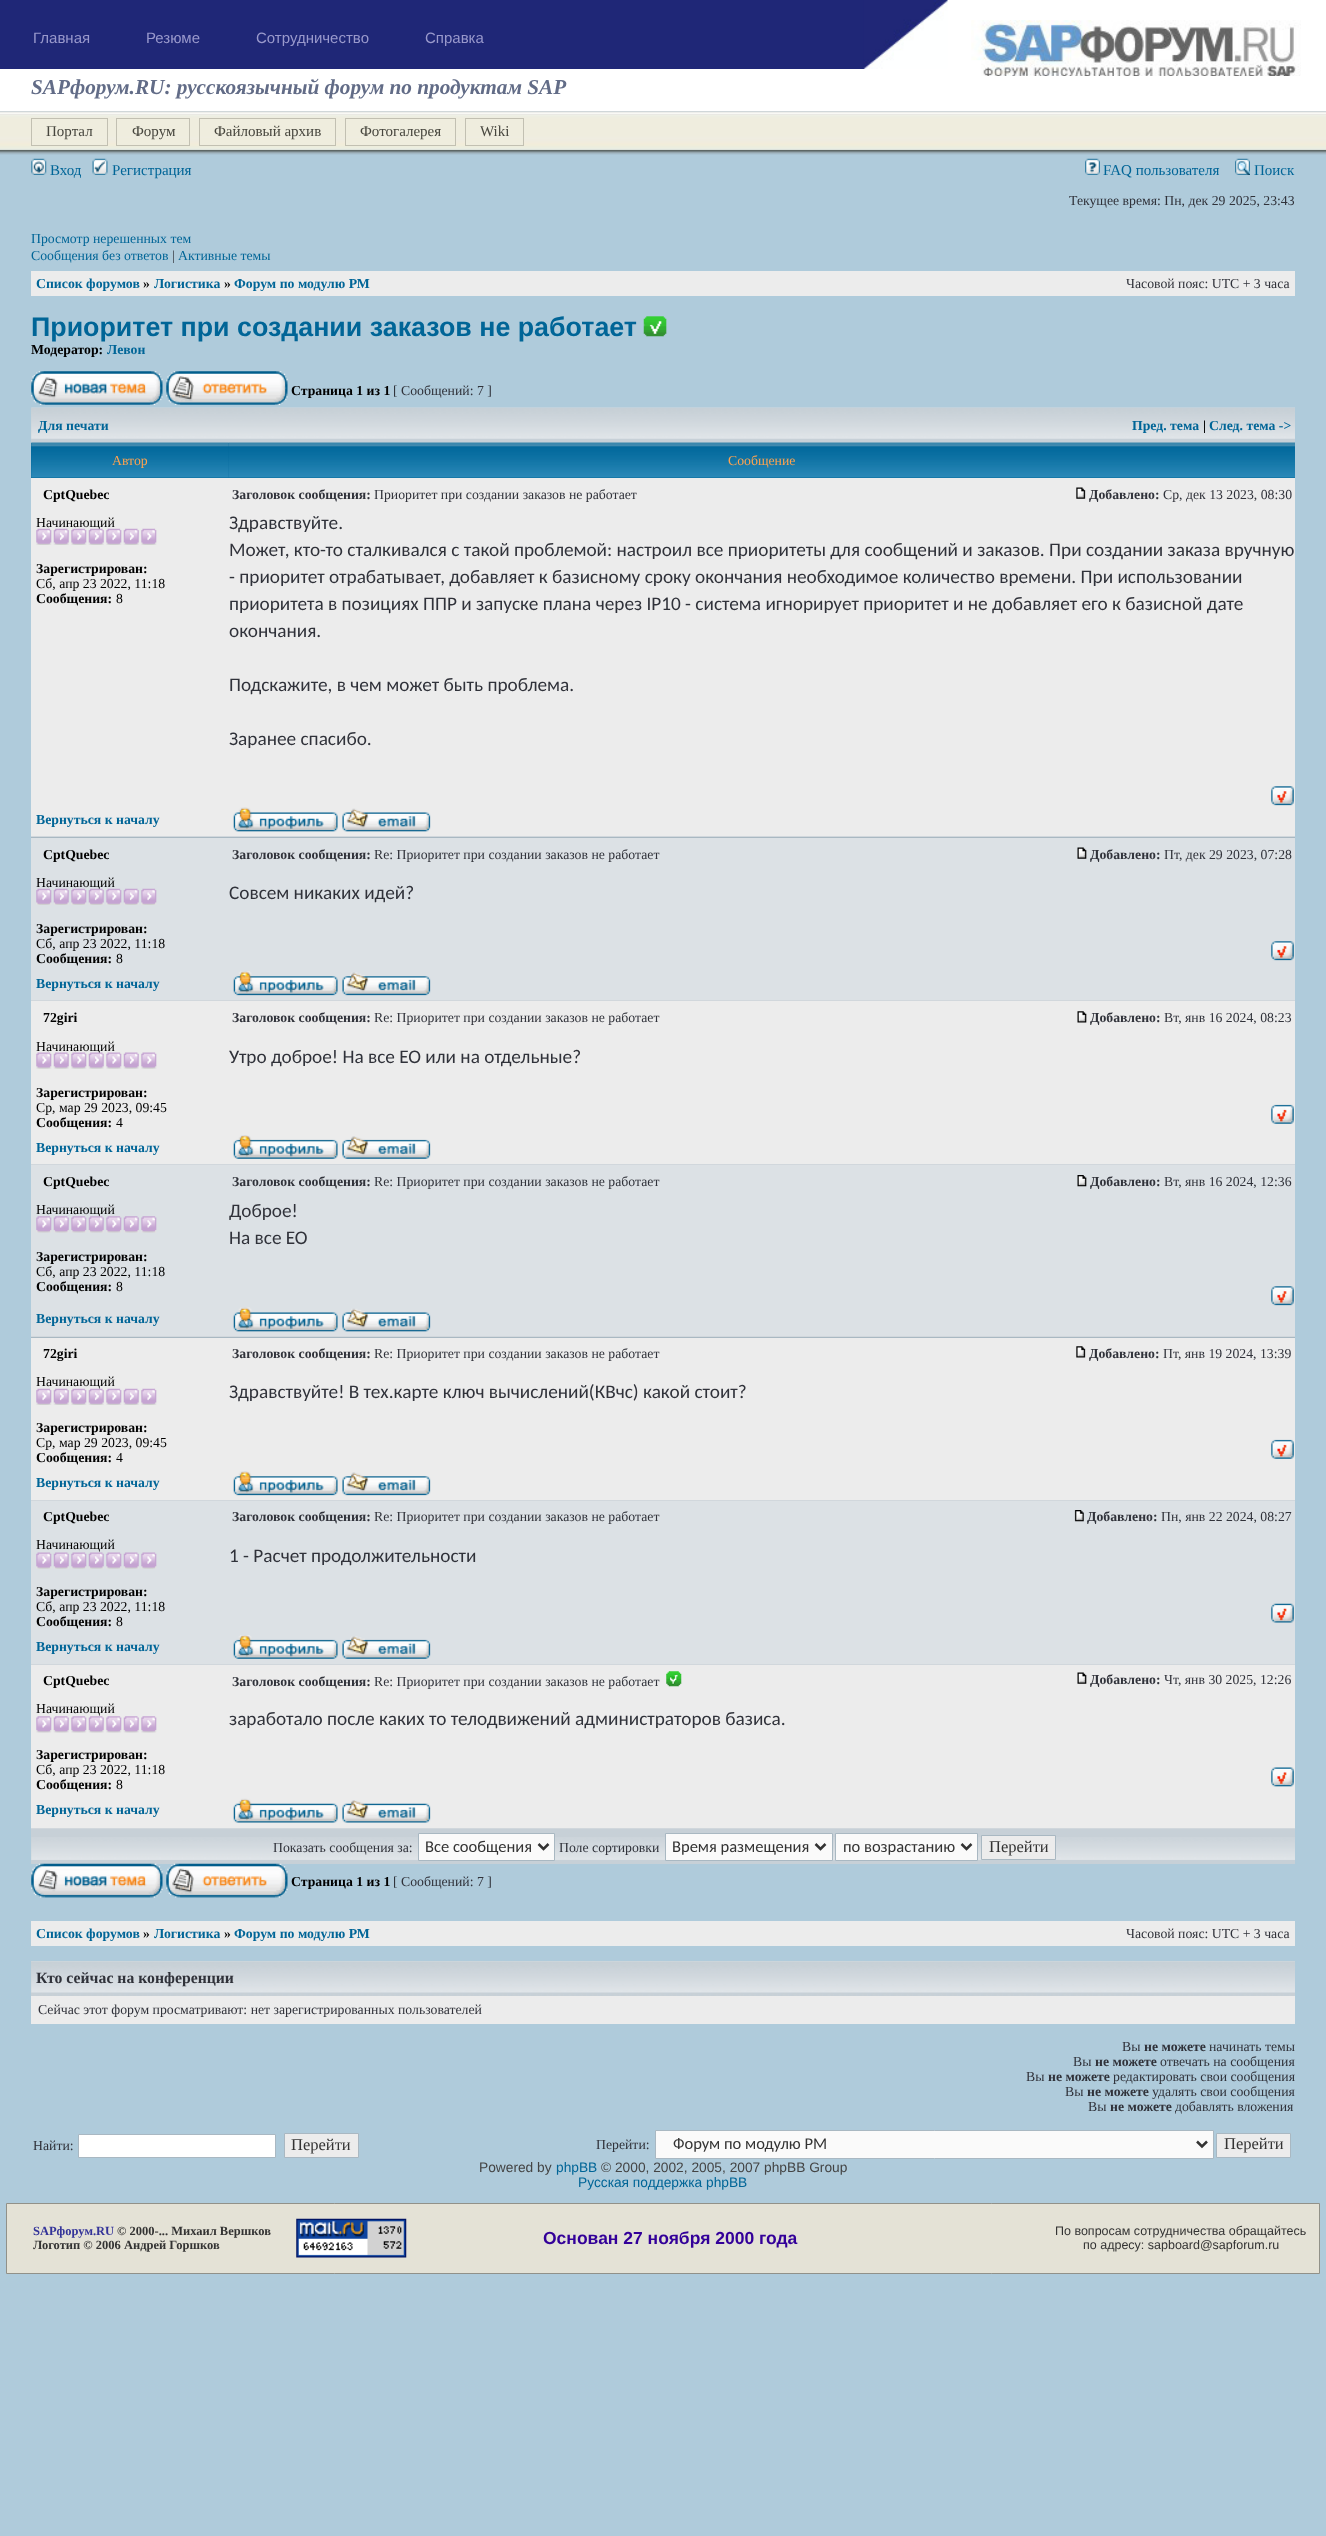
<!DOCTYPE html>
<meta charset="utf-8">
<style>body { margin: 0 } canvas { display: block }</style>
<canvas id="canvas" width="1326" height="2536"></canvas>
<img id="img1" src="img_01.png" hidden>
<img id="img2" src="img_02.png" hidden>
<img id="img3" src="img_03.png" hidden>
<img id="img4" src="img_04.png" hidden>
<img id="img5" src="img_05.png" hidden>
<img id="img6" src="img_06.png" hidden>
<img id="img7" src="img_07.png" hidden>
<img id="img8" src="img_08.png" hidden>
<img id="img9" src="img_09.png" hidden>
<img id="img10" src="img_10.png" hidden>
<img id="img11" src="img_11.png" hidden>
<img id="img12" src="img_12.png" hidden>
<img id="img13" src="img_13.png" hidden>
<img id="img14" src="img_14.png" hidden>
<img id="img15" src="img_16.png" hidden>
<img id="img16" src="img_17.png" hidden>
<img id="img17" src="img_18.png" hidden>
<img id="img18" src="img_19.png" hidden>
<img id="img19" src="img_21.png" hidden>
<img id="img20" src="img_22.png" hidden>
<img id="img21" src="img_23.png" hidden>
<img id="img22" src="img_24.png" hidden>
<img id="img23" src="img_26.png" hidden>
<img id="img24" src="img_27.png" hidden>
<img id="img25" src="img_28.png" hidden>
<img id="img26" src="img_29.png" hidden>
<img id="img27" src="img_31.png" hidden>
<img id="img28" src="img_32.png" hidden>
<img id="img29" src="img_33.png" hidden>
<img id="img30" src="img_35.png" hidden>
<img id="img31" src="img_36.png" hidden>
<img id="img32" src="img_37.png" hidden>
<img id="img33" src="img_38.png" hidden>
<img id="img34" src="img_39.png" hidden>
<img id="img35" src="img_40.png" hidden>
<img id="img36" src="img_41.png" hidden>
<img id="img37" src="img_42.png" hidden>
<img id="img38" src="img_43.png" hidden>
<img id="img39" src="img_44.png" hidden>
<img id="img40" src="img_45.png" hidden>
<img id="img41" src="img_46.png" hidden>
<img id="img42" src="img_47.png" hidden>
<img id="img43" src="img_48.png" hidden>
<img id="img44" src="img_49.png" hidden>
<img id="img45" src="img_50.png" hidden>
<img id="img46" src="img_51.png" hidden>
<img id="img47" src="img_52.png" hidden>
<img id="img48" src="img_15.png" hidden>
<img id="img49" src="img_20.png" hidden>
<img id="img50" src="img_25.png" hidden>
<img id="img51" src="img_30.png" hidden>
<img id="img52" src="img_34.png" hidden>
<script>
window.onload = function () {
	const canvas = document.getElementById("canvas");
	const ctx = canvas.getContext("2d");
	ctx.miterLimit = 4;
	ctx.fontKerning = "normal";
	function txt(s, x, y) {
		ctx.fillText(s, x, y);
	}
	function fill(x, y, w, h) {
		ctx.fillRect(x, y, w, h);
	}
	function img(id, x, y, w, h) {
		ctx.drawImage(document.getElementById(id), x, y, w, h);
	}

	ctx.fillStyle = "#AFCBDB";
	fill(0, 0, 1326, 2536);
	ctx.fillStyle = "#1F2777";
	fill(0, 0, 864, 69);
	ctx.fillStyle = "#FFFFFF";
	fill(0, 69, 864, 7);
	fill(864, 0, 462, 76);
	img("img1", 863, 0, 85, 69);
	img("img2", 971, 20, 330, 56);
	fill(0, 76, 1326, 35);
	img("img3", 0, 111, 1326, 44);
	ctx.fillStyle = "#EFEDDE";
	fill(32, 138, 75, 7);
	ctx.strokeStyle = "#C2C0B2";
	ctx.strokeRect(31.5, 118.5, 76, 27);
	fill(117, 138, 72, 7);
	ctx.strokeRect(116.5, 118.5, 73, 27);
	fill(200, 138, 135, 7);
	ctx.strokeRect(199.5, 118.5, 136, 27);
	fill(346, 138, 109, 7);
	ctx.strokeRect(345.5, 118.5, 110, 27);
	fill(466, 138, 57, 7);
	ctx.strokeRect(465.5, 118.5, 58, 27);
	img("img4", 31, 158, 16, 17);
	img("img5", 92, 158, 16, 17);
	img("img6", 1085, 158, 15, 17);
	img("img7", 1235, 158, 15, 17);
	ctx.fillStyle = "#ECECEC";
	fill(31, 271, 1264, 25);
	img("img8", 643, 316, 24, 21);
	img("img9", 31, 371, 132, 34);
	img("img10", 166, 371, 122, 34);
	ctx.fillStyle = "#C7D0D7";
	fill(31, 408, 1264, 35);
	img("img11", 31, 407, 1264, 32);
	ctx.fillStyle = "#A9B8C2";
	fill(31, 837, 1264, 1);
	ctx.fillStyle = "#006699";
	fill(31, 443, 198, 35);
	img("img12", 31, 442, 198, 36);
	fill(229, 477, 1066, 1);
	img("img13", 228, 442, 1067, 36);
	ctx.fillStyle = "#ECECEC";
	fill(31, 478, 1264, 358);
	img("img14", 1076, 487, 10, 12);
	img("img15", 1271, 786, 23, 20);
	img("img16", 233, 807, 105, 25);
	img("img17", 342, 808, 89, 24);
	ctx.fillStyle = "#D1D7DC";
	fill(31, 836, 1264, 1);
	ctx.fillStyle = "#DCE1E5";
	fill(31, 838, 1264, 162);
	img("img18", 1077, 847, 10, 12);
	img("img19", 1271, 941, 23, 20);
	img("img20", 233, 971, 105, 25);
	img("img21", 342, 972, 89, 24);
	ctx.fillStyle = "#D1D7DC";
	fill(31, 1000, 1264, 1);
	ctx.fillStyle = "#ECECEC";
	fill(31, 1001, 1264, 163);
	img("img22", 1077, 1011, 10, 12);
	img("img23", 1271, 1104, 23, 20);
	img("img24", 233, 1135, 105, 24);
	img("img25", 342, 1136, 89, 23);
	ctx.fillStyle = "#D1D7DC";
	fill(31, 1164, 1264, 1);
	ctx.fillStyle = "#A9B8C2";
	fill(31, 1337, 1264, 1);
	ctx.fillStyle = "#DCE1E5";
	fill(31, 1165, 1264, 171);
	img("img26", 1077, 1175, 10, 12);
	img("img19", 1271, 1286, 23, 20);
	img("img27", 233, 1307, 105, 25);
	img("img28", 342, 1308, 89, 24);
	ctx.fillStyle = "#D1D7DC";
	fill(31, 1336, 1264, 1);
	ctx.fillStyle = "#ECECEC";
	fill(31, 1338, 1264, 162);
	img("img29", 1076, 1346, 10, 12);
	img("img23", 1271, 1439, 23, 20);
	img("img30", 233, 1471, 105, 25);
	img("img31", 342, 1472, 89, 24);
	ctx.fillStyle = "#D1D7DC";
	fill(31, 1500, 1264, 1);
	ctx.fillStyle = "#DCE1E5";
	fill(31, 1501, 1264, 163);
	img("img32", 1074, 1510, 10, 12);
	img("img33", 36, 1552, 121, 17);
	img("img34", 1271, 1603, 23, 20);
	img("img35", 233, 1635, 105, 24);
	img("img36", 342, 1636, 89, 23);
	ctx.fillStyle = "#D1D7DC";
	fill(31, 1664, 1264, 1);
	ctx.fillStyle = "#ECECEC";
	fill(31, 1665, 1264, 163);
	img("img37", 666, 1671, 16, 16);
	img("img38", 1077, 1672, 10, 12);
	img("img39", 36, 1716, 121, 17);
	img("img40", 1271, 1767, 23, 20);
	img("img41", 233, 1798, 105, 25);
	img("img42", 342, 1800, 89, 23);
	ctx.fillStyle = "#D1D7DC";
	fill(31, 1828, 1264, 1);
	ctx.fillStyle = "#C7D0D7";
	fill(31, 1829, 1264, 35);
	img("img43", 31, 1837, 1264, 23);
	ctx.fillStyle = "#FAFAFA";
	ctx.beginPath();
	ctx.rect(418.5, 1833.5, 136, 27);
	ctx.fill();
	ctx.strokeStyle = "#A9B8C2";
	ctx.stroke();
	ctx.beginPath();
	ctx.moveTo(538.5, 1844);
	ctx.lineTo(543.5, 1849);
	ctx.lineTo(548.5, 1844);
	ctx.strokeStyle = "#333333";
	ctx.lineWidth = 2.5;
	ctx.stroke();
	ctx.beginPath();
	ctx.rect(665.5, 1833.5, 167, 27);
	ctx.fill();
	ctx.strokeStyle = "#A9B8C2";
	ctx.lineWidth = 1;
	ctx.stroke();
	ctx.beginPath();
	ctx.moveTo(815.5, 1844);
	ctx.lineTo(820.5, 1849);
	ctx.lineTo(825.5, 1844);
	ctx.strokeStyle = "#333333";
	ctx.lineWidth = 2.5;
	ctx.stroke();
	ctx.beginPath();
	ctx.rect(835.5, 1833.5, 142, 27);
	ctx.fill();
	ctx.strokeStyle = "#A9B8C2";
	ctx.lineWidth = 1;
	ctx.stroke();
	ctx.beginPath();
	ctx.moveTo(961.5, 1844);
	ctx.lineTo(966.5, 1849);
	ctx.lineTo(971.5, 1844);
	ctx.strokeStyle = "#333333";
	ctx.lineWidth = 2.5;
	ctx.stroke();
	ctx.fillStyle = "#ECECEC";
	ctx.beginPath();
	ctx.rect(981.5, 1835.5, 74, 24);
	ctx.fill();
	ctx.strokeStyle = "#A9B8C2";
	ctx.lineWidth = 1;
	ctx.stroke();
	img("img44", 31, 1863, 132, 35);
	img("img45", 166, 1863, 122, 35);
	fill(31, 1921, 1264, 25);
	ctx.fillStyle = "#C7D0D7";
	fill(31, 1961, 1264, 35);
	img("img46", 31, 1961, 1264, 35);
	ctx.fillStyle = "#ECECEC";
	fill(31, 1996, 1264, 28);
	ctx.fillStyle = "#FFFFFF";
	ctx.beginPath();
	ctx.rect(78.5, 2134.5, 197, 23);
	ctx.fill();
	ctx.stroke();
	ctx.fillStyle = "#ECECEC";
	ctx.beginPath();
	ctx.rect(284.5, 2133.5, 74, 24);
	ctx.fill();
	ctx.stroke();
	ctx.fillStyle = "#FAFAFA";
	ctx.beginPath();
	ctx.rect(655.5, 2130.5, 558, 28);
	ctx.fill();
	ctx.stroke();
	ctx.beginPath();
	ctx.moveTo(1197, 2141.5);
	ctx.lineTo(1202, 2146.5);
	ctx.lineTo(1207, 2141.5);
	ctx.strokeStyle = "#333333";
	ctx.lineWidth = 2.5;
	ctx.stroke();
	ctx.fillStyle = "#ECECEC";
	ctx.beginPath();
	ctx.rect(1216.5, 2133.5, 74, 24);
	ctx.fill();
	ctx.strokeStyle = "#A9B8C2";
	ctx.lineWidth = 1;
	ctx.stroke();
	ctx.fillStyle = "#E4E2D6";
	ctx.beginPath();
	ctx.rect(6.5, 2203.5, 1313, 70);
	ctx.fill();
	ctx.strokeStyle = "#919189";
	ctx.stroke();
	img("img47", 296, 2218, 111, 40);
	ctx.font = "15px Liberation Sans";
	ctx.fillStyle = "#9999CC";
	txt("Главная", 33, 43);
	txt("Резюме", 146, 43);
	txt("Сотрудничество", 256, 43);
	txt("Справка", 425, 43);
	ctx.font = "italic bold 21.25px Liberation Serif";
	ctx.fillStyle = "#626C87";
	txt("SAPфорум.RU: русскоязычный форум по продуктам SAP", 31, 94);
	ctx.font = "15px Liberation Serif";
	ctx.fillStyle = "#47463E";
	txt("Портал", 46, 136);
	txt("Форум", 132, 136);
	txt("Файловый архив", 214, 136);
	txt("Фотогалерея", 360, 136);
	txt("Wiki", 480, 136);
	ctx.fillStyle = "#006597";
	txt("Вход", 50, 175);
	txt("Регистрация", 112, 175);
	txt("FAQ пользователя", 1103, 175);
	txt("Поиск", 1254, 175);
	ctx.font = "13.75px Liberation Serif";
	ctx.fillStyle = "#30323A";
	txt("Текущее время: Пн, дек 29 2025, 23:43", 1069, 205);
	ctx.fillStyle = "#006597";
	txt("Просмотр нерешенных тем", 31, 243);
	txt("Сообщения без ответов", 31, 260);
	ctx.fillStyle = "#30323A";
	txt("|", 172, 260);
	ctx.fillStyle = "#006597";
	txt("Активные темы", 178, 260);
	ctx.font = "bold 13.75px Liberation Serif";
	txt("Список форумов", 36, 288);
	ctx.fillStyle = "#000000";
	txt("»", 143, 288);
	ctx.fillStyle = "#006597";
	txt("Логистика", 154, 288);
	ctx.fillStyle = "#000000";
	txt("»", 224, 288);
	ctx.fillStyle = "#006597";
	txt("Форум по модулю РМ", 234, 288);
	ctx.font = "13.75px Liberation Serif";
	ctx.fillStyle = "#30323A";
	txt("Часовой пояс: UTC + 3 часа", 1126, 288);
	ctx.font = "bold 26.8px Liberation Sans";
	ctx.fillStyle = "#006597";
	txt("Приоритет при создании заказов не работает", 31, 336);
	ctx.font = "bold 13.75px Liberation Serif";
	ctx.fillStyle = "#000000";
	txt("Модератор:", 31, 354);
	ctx.fillStyle = "#006597";
	txt("Левон", 107, 354);
	ctx.fillStyle = "#000000";
	txt("Страница 1 из 1", 291, 395);
	ctx.font = "13.75px Liberation Serif";
	ctx.fillStyle = "#30323A";
	txt("[ Сообщений: 7 ]", 393, 395);
	ctx.font = "bold 13.75px Liberation Serif";
	ctx.fillStyle = "#006597";
	txt("Для печати", 38, 430);
	txt("Пред. тема", 1132, 430);
	ctx.fillStyle = "#000000";
	txt("|", 1203, 430);
	ctx.fillStyle = "#006597";
	txt("След. тема ->", 1209, 430);
	ctx.font = "13.75px Liberation Serif";
	ctx.fillStyle = "#FFA34F";
	txt("Автор", 112, 465);
	txt("Сообщение", 728, 465);
	ctx.font = "bold 13.75px Liberation Serif";
	ctx.fillStyle = "#000000";
	txt("CptQuebec", 43, 499);
	ctx.fillStyle = "#30323A";
	txt("Заголовок сообщения:", 232, 499);
	ctx.font = "13.75px Liberation Serif";
	txt("Приоритет при создании заказов не работает", 374, 499);
	ctx.font = "bold 13.75px Liberation Serif";
	txt("Добавлено:", 1089, 499);
	ctx.font = "13.75px Liberation Serif";
	txt("Ср, дек 13 2023, 08:30", 1163, 499);
	ctx.fillStyle = "#000000";
	txt("Начинающий", 36, 527);
	img("img48", 36, 528, 121, 17);
	ctx.font = "bold 13.75px Liberation Serif";
	txt("Зарегистрирован:", 36, 573);
	ctx.font = "13.75px Liberation Serif";
	txt("Сб, апр 23 2022, 11:18", 36, 588);
	ctx.font = "bold 13.75px Liberation Serif";
	txt("Сообщения:", 36, 603);
	ctx.font = "13.75px Liberation Serif";
	txt("8", 116, 603);
	ctx.font = "19.25px Carlito";
	ctx.fillStyle = "#30323A";
	txt("Здравствуйте.", 229, 529);
	txt("Может, кто-то сталкивался с такой проблемой: настроил все приоритеты для сообщений и заказов. При создании заказа вручную", 229, 556);
	txt("- приоритет отрабатывает, добавляет к базисному сроку окончания необходимое количество времени. При использовании", 229, 583);
	txt("приоритета в позициях ППР и запуске плана через IP10 - система игнорирует приоритет и не добавляет его к базисной дате", 229, 610);
	txt("окончания.", 229, 637);
	txt("Подскажите, в чем может быть проблема.", 229, 691);
	txt("Заранее спасибо.", 229, 745);
	ctx.font = "bold 13.75px Liberation Serif";
	ctx.fillStyle = "#006597";
	txt("Вернуться к началу", 36, 824);
	ctx.fillStyle = "#000000";
	txt("CptQuebec", 43, 859);
	ctx.fillStyle = "#30323A";
	txt("Заголовок сообщения:", 232, 859);
	ctx.font = "13.75px Liberation Serif";
	txt("Re: Приоритет при создании заказов не работает", 374, 859);
	ctx.font = "bold 13.75px Liberation Serif";
	txt("Добавлено:", 1090, 859);
	ctx.font = "13.75px Liberation Serif";
	txt("Пт, дек 29 2023, 07:28", 1164, 859);
	ctx.fillStyle = "#000000";
	txt("Начинающий", 36, 887);
	img("img49", 36, 888, 121, 17);
	ctx.font = "bold 13.75px Liberation Serif";
	txt("Зарегистрирован:", 36, 933);
	ctx.font = "13.75px Liberation Serif";
	txt("Сб, апр 23 2022, 11:18", 36, 948);
	ctx.font = "bold 13.75px Liberation Serif";
	txt("Сообщения:", 36, 963);
	ctx.font = "13.75px Liberation Serif";
	txt("8", 116, 963);
	ctx.font = "19.25px Carlito";
	ctx.fillStyle = "#30323A";
	txt("Совсем никаких идей?", 229, 899);
	ctx.font = "bold 13.75px Liberation Serif";
	ctx.fillStyle = "#006597";
	txt("Вернуться к началу", 36, 988);
	ctx.fillStyle = "#000000";
	txt("72giri", 43, 1022);
	ctx.fillStyle = "#30323A";
	txt("Заголовок сообщения:", 232, 1022);
	ctx.font = "13.75px Liberation Serif";
	txt("Re: Приоритет при создании заказов не работает", 374, 1022);
	ctx.font = "bold 13.75px Liberation Serif";
	txt("Добавлено:", 1090, 1022);
	ctx.font = "13.75px Liberation Serif";
	txt("Вт, янв 16 2024, 08:23", 1164, 1022);
	ctx.fillStyle = "#000000";
	txt("Начинающий", 36, 1051);
	img("img50", 36, 1052, 121, 17);
	ctx.font = "bold 13.75px Liberation Serif";
	txt("Зарегистрирован:", 36, 1097);
	ctx.font = "13.75px Liberation Serif";
	txt("Ср, мар 29 2023, 09:45", 36, 1112);
	ctx.font = "bold 13.75px Liberation Serif";
	txt("Сообщения:", 36, 1127);
	ctx.font = "13.75px Liberation Serif";
	txt("4", 116, 1127);
	ctx.font = "19.25px Carlito";
	ctx.fillStyle = "#30323A";
	txt("Утро доброе! На все ЕО или на отдельные?", 229, 1063);
	ctx.font = "bold 13.75px Liberation Serif";
	ctx.fillStyle = "#006597";
	txt("Вернуться к началу", 36, 1152);
	ctx.fillStyle = "#000000";
	txt("CptQuebec", 43, 1186);
	ctx.fillStyle = "#30323A";
	txt("Заголовок сообщения:", 232, 1186);
	ctx.font = "13.75px Liberation Serif";
	txt("Re: Приоритет при создании заказов не работает", 374, 1186);
	ctx.font = "bold 13.75px Liberation Serif";
	txt("Добавлено:", 1090, 1186);
	ctx.font = "13.75px Liberation Serif";
	txt("Вт, янв 16 2024, 12:36", 1164, 1186);
	ctx.fillStyle = "#000000";
	txt("Начинающий", 36, 1214);
	img("img51", 36, 1216, 121, 17);
	ctx.font = "bold 13.75px Liberation Serif";
	txt("Зарегистрирован:", 36, 1261);
	ctx.font = "13.75px Liberation Serif";
	txt("Сб, апр 23 2022, 11:18", 36, 1276);
	ctx.font = "bold 13.75px Liberation Serif";
	txt("Сообщения:", 36, 1291);
	ctx.font = "13.75px Liberation Serif";
	txt("8", 116, 1291);
	ctx.font = "19.25px Carlito";
	ctx.fillStyle = "#30323A";
	txt("Доброе!", 229, 1217);
	txt("На все ЕО", 229, 1244);
	ctx.font = "bold 13.75px Liberation Serif";
	ctx.fillStyle = "#006597";
	txt("Вернуться к началу", 36, 1323);
	ctx.fillStyle = "#000000";
	txt("72giri", 43, 1358);
	ctx.fillStyle = "#30323A";
	txt("Заголовок сообщения:", 232, 1358);
	ctx.font = "13.75px Liberation Serif";
	txt("Re: Приоритет при создании заказов не работает", 374, 1358);
	ctx.font = "bold 13.75px Liberation Serif";
	txt("Добавлено:", 1089, 1358);
	ctx.font = "13.75px Liberation Serif";
	txt("Пт, янв 19 2024, 13:39", 1163, 1358);
	ctx.fillStyle = "#000000";
	txt("Начинающий", 36, 1386);
	img("img52", 36, 1388, 121, 17);
	ctx.font = "bold 13.75px Liberation Serif";
	txt("Зарегистрирован:", 36, 1432);
	ctx.font = "13.75px Liberation Serif";
	txt("Ср, мар 29 2023, 09:45", 36, 1447);
	ctx.font = "bold 13.75px Liberation Serif";
	txt("Сообщения:", 36, 1462);
	ctx.font = "13.75px Liberation Serif";
	txt("4", 116, 1462);
	ctx.font = "19.25px Carlito";
	ctx.fillStyle = "#30323A";
	txt("Здравствуйте! В тех.карте ключ вычислений(КВчс) какой стоит?", 229, 1398);
	ctx.font = "bold 13.75px Liberation Serif";
	ctx.fillStyle = "#006597";
	txt("Вернуться к началу", 36, 1487);
	ctx.fillStyle = "#000000";
	txt("CptQuebec", 43, 1521);
	ctx.fillStyle = "#30323A";
	txt("Заголовок сообщения:", 232, 1521);
	ctx.font = "13.75px Liberation Serif";
	txt("Re: Приоритет при создании заказов не работает", 374, 1521);
	ctx.font = "bold 13.75px Liberation Serif";
	txt("Добавлено:", 1087, 1521);
	ctx.font = "13.75px Liberation Serif";
	txt("Пн, янв 22 2024, 08:27", 1161, 1521);
	ctx.fillStyle = "#000000";
	txt("Начинающий", 36, 1549);
	ctx.font = "bold 13.75px Liberation Serif";
	txt("Зарегистрирован:", 36, 1596);
	ctx.font = "13.75px Liberation Serif";
	txt("Сб, апр 23 2022, 11:18", 36, 1611);
	ctx.font = "bold 13.75px Liberation Serif";
	txt("Сообщения:", 36, 1626);
	ctx.font = "13.75px Liberation Serif";
	txt("8", 116, 1626);
	ctx.font = "19.25px Carlito";
	ctx.fillStyle = "#30323A";
	txt("1 - Расчет продолжительности", 229, 1562);
	ctx.font = "bold 13.75px Liberation Serif";
	ctx.fillStyle = "#006597";
	txt("Вернуться к началу", 36, 1651);
	ctx.fillStyle = "#000000";
	txt("CptQuebec", 43, 1685);
	ctx.fillStyle = "#30323A";
	txt("Заголовок сообщения:", 232, 1686);
	ctx.font = "13.75px Liberation Serif";
	txt("Re: Приоритет при создании заказов не работает", 374, 1686);
	ctx.font = "bold 13.75px Liberation Serif";
	txt("Добавлено:", 1090, 1684);
	ctx.font = "13.75px Liberation Serif";
	txt("Чт, янв 30 2025, 12:26", 1164, 1684);
	ctx.fillStyle = "#000000";
	txt("Начинающий", 36, 1713);
	ctx.font = "bold 13.75px Liberation Serif";
	txt("Зарегистрирован:", 36, 1759);
	ctx.font = "13.75px Liberation Serif";
	txt("Сб, апр 23 2022, 11:18", 36, 1774);
	ctx.font = "bold 13.75px Liberation Serif";
	txt("Сообщения:", 36, 1789);
	ctx.font = "13.75px Liberation Serif";
	txt("8", 116, 1789);
	ctx.font = "19.25px Carlito";
	ctx.fillStyle = "#30323A";
	txt("заработало после каких то телодвижений администраторов базиса.", 229, 1725);
	ctx.font = "bold 13.75px Liberation Serif";
	ctx.fillStyle = "#006597";
	txt("Вернуться к началу", 36, 1814);
	ctx.font = "13.75px Liberation Serif";
	ctx.fillStyle = "#30323A";
	txt("Показать сообщения за:", 273, 1852);
	ctx.font = "16.5px Carlito";
	ctx.fillStyle = "#333333";
	txt("Все сообщения", 425, 1852);
	ctx.font = "13.75px Liberation Serif";
	ctx.fillStyle = "#30323A";
	txt("Поле сортировки", 559, 1852);
	ctx.font = "16.5px Carlito";
	ctx.fillStyle = "#333333";
	txt("Время размещения", 672, 1852);
	txt("по возрастанию", 843, 1852);
	ctx.font = "16.5px Liberation Serif";
	txt("Перейти", 989, 1852);
	ctx.font = "bold 13.75px Liberation Serif";
	ctx.fillStyle = "#000000";
	txt("Страница 1 из 1", 291, 1886);
	ctx.font = "13.75px Liberation Serif";
	ctx.fillStyle = "#30323A";
	txt("[ Сообщений: 7 ]", 393, 1886);
	ctx.font = "bold 13.75px Liberation Serif";
	ctx.fillStyle = "#006597";
	txt("Список форумов", 36, 1938);
	ctx.fillStyle = "#000000";
	txt("»", 143, 1938);
	ctx.fillStyle = "#006597";
	txt("Логистика", 154, 1938);
	ctx.fillStyle = "#000000";
	txt("»", 224, 1938);
	ctx.fillStyle = "#006597";
	txt("Форум по модулю РМ", 234, 1938);
	ctx.font = "13.75px Liberation Serif";
	ctx.fillStyle = "#30323A";
	txt("Часовой пояс: UTC + 3 часа", 1126, 1938);
	ctx.font = "bold 15.75px Liberation Serif";
	txt("Кто сейчас на конференции", 36, 1983);
	ctx.font = "13.75px Liberation Serif";
	txt("Сейчас этот форум просматривают: нет зарегистрированных пользователей", 38, 2014);
	txt("Вы", 1122, 2051);
	ctx.font = "bold 13.75px Liberation Serif";
	txt("не можете", 1144, 2051);
	ctx.font = "13.75px Liberation Serif";
	txt("начинать темы", 1209, 2051);
	txt("Вы", 1073, 2066);
	ctx.font = "bold 13.75px Liberation Serif";
	txt("не можете", 1095, 2066);
	ctx.font = "13.75px Liberation Serif";
	txt("отвечать на сообщения", 1160, 2066);
	txt("Вы", 1026, 2081);
	ctx.font = "bold 13.75px Liberation Serif";
	txt("не можете", 1048, 2081);
	ctx.font = "13.75px Liberation Serif";
	txt("редактировать свои сообщения", 1113, 2081);
	txt("Вы", 1065, 2096);
	ctx.font = "bold 13.75px Liberation Serif";
	txt("не можете", 1087, 2096);
	ctx.font = "13.75px Liberation Serif";
	txt("удалять свои сообщения", 1152, 2096);
	txt("Вы", 1088, 2111);
	ctx.font = "bold 13.75px Liberation Serif";
	txt("не можете", 1110, 2111);
	ctx.font = "13.75px Liberation Serif";
	txt("добавлять вложения", 1175, 2111);
	txt("Найти:", 33, 2150);
	ctx.font = "16.5px Liberation Serif";
	ctx.fillStyle = "#333333";
	txt("Перейти", 291, 2150);
	ctx.font = "13.75px Liberation Serif";
	ctx.fillStyle = "#30323A";
	txt("Перейти:", 596, 2149);
	ctx.font = "16.5px Carlito";
	ctx.fillStyle = "#333333";
	txt("Форум по модулю РМ", 673, 2149);
	ctx.font = "16.5px Liberation Serif";
	txt("Перейти", 1224, 2149);
	ctx.font = "13.75px Liberation Sans";
	ctx.fillStyle = "#444444";
	txt("Powered by", 479, 2172);
	ctx.fillStyle = "#006597";
	txt("phpBB", 556, 2172);
	ctx.fillStyle = "#444444";
	txt("© 2000, 2002, 2005, 2007 phpBB Group", 601, 2172);
	ctx.fillStyle = "#006597";
	txt("Русская поддержка phpBB", 578, 2187);
	ctx.font = "bold 12.5px Liberation Serif";
	ctx.fillStyle = "#333399";
	txt("SAPфорум.RU", 33, 2235);
	ctx.fillStyle = "#333333";
	txt("© 2000-... Михаил Вершков", 117, 2235);
	txt("Логотип © 2006 Андрей Горшков", 33, 2249);
	ctx.font = "bold 17.5px Liberation Sans";
	ctx.fillStyle = "#330099";
	txt("Основан 27 ноября 2000 года", 543, 2244);
	ctx.font = "12.5px Liberation Sans";
	ctx.fillStyle = "#333333";
	txt("По вопросам сотрудничества обращайтесь", 1055, 2235);
	txt("по адресу: sapboard@sapforum.ru", 1083, 2249);
};
</script>
